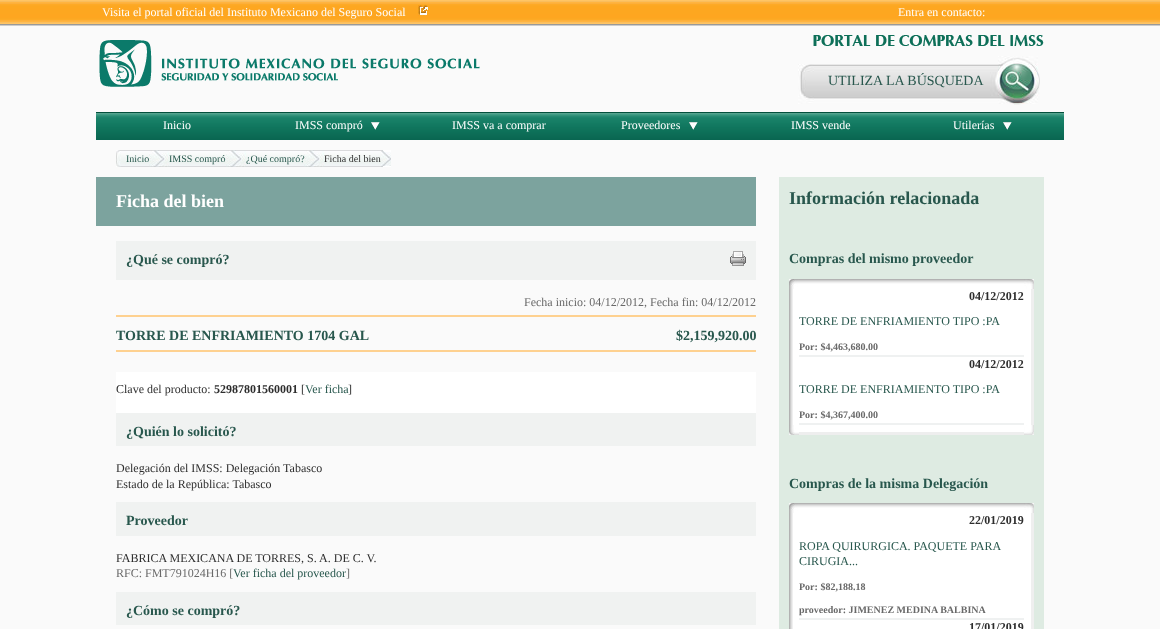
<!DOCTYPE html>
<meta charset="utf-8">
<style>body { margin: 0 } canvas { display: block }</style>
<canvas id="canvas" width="1160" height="629"></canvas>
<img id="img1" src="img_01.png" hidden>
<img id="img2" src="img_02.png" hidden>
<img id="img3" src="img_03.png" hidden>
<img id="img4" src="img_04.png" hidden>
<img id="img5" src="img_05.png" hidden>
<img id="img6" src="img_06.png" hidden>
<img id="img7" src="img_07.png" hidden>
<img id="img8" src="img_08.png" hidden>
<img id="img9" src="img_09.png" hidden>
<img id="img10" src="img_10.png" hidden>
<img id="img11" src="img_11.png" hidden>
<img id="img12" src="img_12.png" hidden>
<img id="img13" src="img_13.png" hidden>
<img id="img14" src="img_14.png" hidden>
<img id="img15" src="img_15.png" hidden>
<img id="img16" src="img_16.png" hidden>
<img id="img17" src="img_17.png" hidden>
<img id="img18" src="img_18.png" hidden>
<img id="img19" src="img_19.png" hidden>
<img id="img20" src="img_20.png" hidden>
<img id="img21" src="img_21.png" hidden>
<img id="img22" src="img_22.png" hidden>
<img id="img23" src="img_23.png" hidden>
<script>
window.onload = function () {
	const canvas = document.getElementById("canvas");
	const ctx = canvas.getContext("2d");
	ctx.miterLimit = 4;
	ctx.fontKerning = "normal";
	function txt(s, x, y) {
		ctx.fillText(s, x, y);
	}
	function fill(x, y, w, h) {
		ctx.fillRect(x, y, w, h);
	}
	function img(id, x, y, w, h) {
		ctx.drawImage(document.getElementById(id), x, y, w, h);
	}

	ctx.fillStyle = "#FAFAFA";
	fill(0, 0, 1160, 629);
	img("img1", 0, 0, 1160, 26);
	img("img2", 418, 5, 11, 11);
	img("img3", 99, 40, 381, 47);
	img("img4", 813, 35, 231, 11);
	img("img5", 798, 56, 242, 49);
	img("img6", 96, 112, 161, 28);
	img("img6", 257, 112, 161, 28);
	img("img7", 371, 122, 9, 8);
	img("img6", 418, 112, 161, 28);
	img("img6", 579, 112, 161, 28);
	img("img7", 689, 122, 9, 8);
	img("img6", 740, 112, 161, 28);
	img("img8", 901, 112, 163, 28);
	img("img7", 1003, 122, 9, 8);
	img("img9", 116, 150, 10, 17);
	img("img10", 126, 150, 23, 17);
	img("img11", 149, 150, 20, 17);
	img("img12", 169, 150, 57, 17);
	img("img11", 226, 150, 20, 17);
	img("img13", 246, 150, 58, 17);
	img("img11", 304, 150, 20, 17);
	img("img12", 324, 150, 57, 17);
	img("img14", 381, 150, 10, 17);
	ctx.fillStyle = "#7CA39E";
	fill(96, 177, 660, 49);
	ctx.fillStyle = "#F0F2F1";
	fill(116, 241, 640, 39);
	img("img15", 730, 251, 16, 15);
	ctx.fillStyle = "#FED190";
	fill(116, 315, 640, 2);
	fill(116, 350, 640, 2);
	ctx.fillStyle = "#FFFFFF";
	fill(116, 372, 640, 41);
	ctx.fillStyle = "#F0F2F1";
	fill(116, 413, 640, 33);
	fill(116, 502, 640, 34);
	fill(116, 592, 640, 33);
	ctx.fillStyle = "#DEEBE2";
	fill(779, 177, 265, 452);
	ctx.fillStyle = "#FFFFFF";
	fill(793, 284, 238, 148);
	img("img16", 789, 279, 10, 10);
	img("img17", 799, 279, 225, 5);
	img("img18", 1024, 279, 10, 10);
	img("img19", 789, 289, 4, 68);
	ctx.fillStyle = "#EFF1F1";
	fill(799, 355, 225, 2);
	ctx.fillStyle = "#EFEFEF";
	fill(1031, 289, 3, 136);
	img("img19", 789, 357, 4, 68);
	ctx.fillStyle = "#EFF1F1";
	fill(799, 423, 225, 2);
	img("img20", 789, 425, 10, 10);
	ctx.fillStyle = "#EEEEEE";
	fill(799, 432, 225, 3);
	img("img21", 1024, 425, 10, 10);
	ctx.fillStyle = "#FFFFFF";
	fill(793, 508, 238, 121);
	img("img16", 789, 503, 10, 10);
	img("img17", 799, 503, 225, 5);
	img("img18", 1024, 503, 10, 10);
	img("img22", 789, 513, 4, 107);
	ctx.fillStyle = "#EFF1F1";
	fill(799, 618, 225, 2);
	ctx.fillStyle = "#EFEFEF";
	fill(1031, 513, 3, 116);
	img("img23", 789, 620, 4, 9);
	ctx.font = "12px Liberation Serif";
	ctx.fillStyle = "#FFFFFF";
	txt("Visita el portal oficial del Instituto Mexicano del Seguro Social", 102, 16);
	txt("Entra en contacto:", 898, 16);
	ctx.font = "14px Liberation Serif";
	ctx.fillStyle = "#28574D";
	txt("UTILIZA LA BÚSQUEDA", 828, 85);
	ctx.font = "12px Liberation Serif";
	ctx.fillStyle = "#FFFFFF";
	txt("Inicio", 163, 129);
	txt("IMSS compró", 295, 129);
	txt("IMSS va a comprar", 452, 129);
	txt("Proveedores", 621, 129);
	txt("IMSS vende", 791, 129);
	txt("Utilerías", 953, 129);
	ctx.font = "10px Liberation Serif";
	ctx.fillStyle = "#28574D";
	txt("Inicio", 126, 162);
	txt("IMSS compró", 169, 162);
	txt("¿Qué compró?", 246, 162);
	ctx.fillStyle = "#2E2E2E";
	txt("Ficha del bien", 324, 162);
	ctx.font = "bold 18px Liberation Serif";
	ctx.fillStyle = "#FFFFFF";
	txt("Ficha del bien", 116, 207);
	ctx.font = "bold 14px Liberation Serif";
	ctx.fillStyle = "#28574D";
	txt("¿Qué se compró?", 126, 264);
	ctx.font = "12px Liberation Serif";
	ctx.fillStyle = "#696969";
	txt("Fecha inicio: 04/12/2012, Fecha fin: 04/12/2012", 524, 306);
	ctx.font = "bold 14px Liberation Serif";
	ctx.fillStyle = "#28574D";
	txt("TORRE DE ENFRIAMIENTO 1704 GAL", 116, 340);
	txt("$2,159,920.00", 676, 340);
	ctx.font = "12px Liberation Serif";
	ctx.fillStyle = "#2E2E2E";
	txt("Clave del producto:", 116, 393);
	ctx.font = "bold 12px Liberation Serif";
	txt("52987801560001", 214, 393);
	ctx.font = "12px Liberation Serif";
	txt("[", 301, 393);
	ctx.fillStyle = "#28574D";
	txt("Ver ficha", 305, 393);
	ctx.fillStyle = "#2E2E2E";
	txt("]", 348, 393);
	ctx.font = "bold 14px Liberation Serif";
	ctx.fillStyle = "#28574D";
	txt("¿Quién lo solicitó?", 126, 436);
	ctx.font = "12px Liberation Serif";
	ctx.fillStyle = "#2E2E2E";
	txt("Delegación del IMSS: Delegación Tabasco", 116, 472);
	txt("Estado de la República: Tabasco", 116, 488);
	ctx.font = "bold 14px Liberation Serif";
	ctx.fillStyle = "#28574D";
	txt("Proveedor", 126, 525);
	ctx.font = "12px Liberation Serif";
	ctx.fillStyle = "#2E2E2E";
	txt("FABRICA MEXICANA DE TORRES, S. A. DE C. V.", 116, 562);
	ctx.fillStyle = "#696969";
	txt("RFC: FMT791024H16 [", 116, 577);
	ctx.fillStyle = "#28574D";
	txt("Ver ficha del proveedor", 233, 577);
	ctx.fillStyle = "#696969";
	txt("]", 346, 577);
	ctx.font = "bold 14px Liberation Serif";
	ctx.fillStyle = "#28574D";
	txt("¿Cómo se compró?", 126, 615);
	ctx.font = "bold 18px Liberation Serif";
	txt("Información relacionada", 789, 204);
	ctx.font = "bold 14px Liberation Serif";
	txt("Compras del mismo proveedor", 789, 263);
	ctx.font = "bold 12px Liberation Serif";
	ctx.fillStyle = "#2E2E2E";
	txt("04/12/2012", 969, 300);
	ctx.font = "12px Liberation Serif";
	ctx.fillStyle = "#28574D";
	txt("TORRE DE ENFRIAMIENTO TIPO :PA", 799, 325);
	ctx.font = "bold 10px Liberation Serif";
	ctx.fillStyle = "#696969";
	txt("Por: $4,463,680.00", 799, 350);
	ctx.font = "bold 12px Liberation Serif";
	ctx.fillStyle = "#2E2E2E";
	txt("04/12/2012", 969, 368);
	ctx.font = "12px Liberation Serif";
	ctx.fillStyle = "#28574D";
	txt("TORRE DE ENFRIAMIENTO TIPO :PA", 799, 393);
	ctx.font = "bold 10px Liberation Serif";
	ctx.fillStyle = "#696969";
	txt("Por: $4,367,400.00", 799, 418);
	ctx.font = "bold 14px Liberation Serif";
	ctx.fillStyle = "#28574D";
	txt("Compras de la misma Delegación", 789, 488);
	ctx.font = "bold 12px Liberation Serif";
	ctx.fillStyle = "#2E2E2E";
	txt("22/01/2019", 969, 524);
	ctx.font = "12px Liberation Serif";
	ctx.fillStyle = "#28574D";
	txt("ROPA QUIRURGICA. PAQUETE PARA", 799, 550);
	txt("CIRUGIA...", 799, 565);
	ctx.font = "bold 10px Liberation Serif";
	ctx.fillStyle = "#696969";
	txt("Por: $82,188.18", 799, 590);
	txt("proveedor: JIMENEZ MEDINA BALBINA", 799, 613);
	ctx.font = "bold 12px Liberation Serif";
	ctx.fillStyle = "#2E2E2E";
	txt("17/01/2019", 969, 631);
};
</script>
